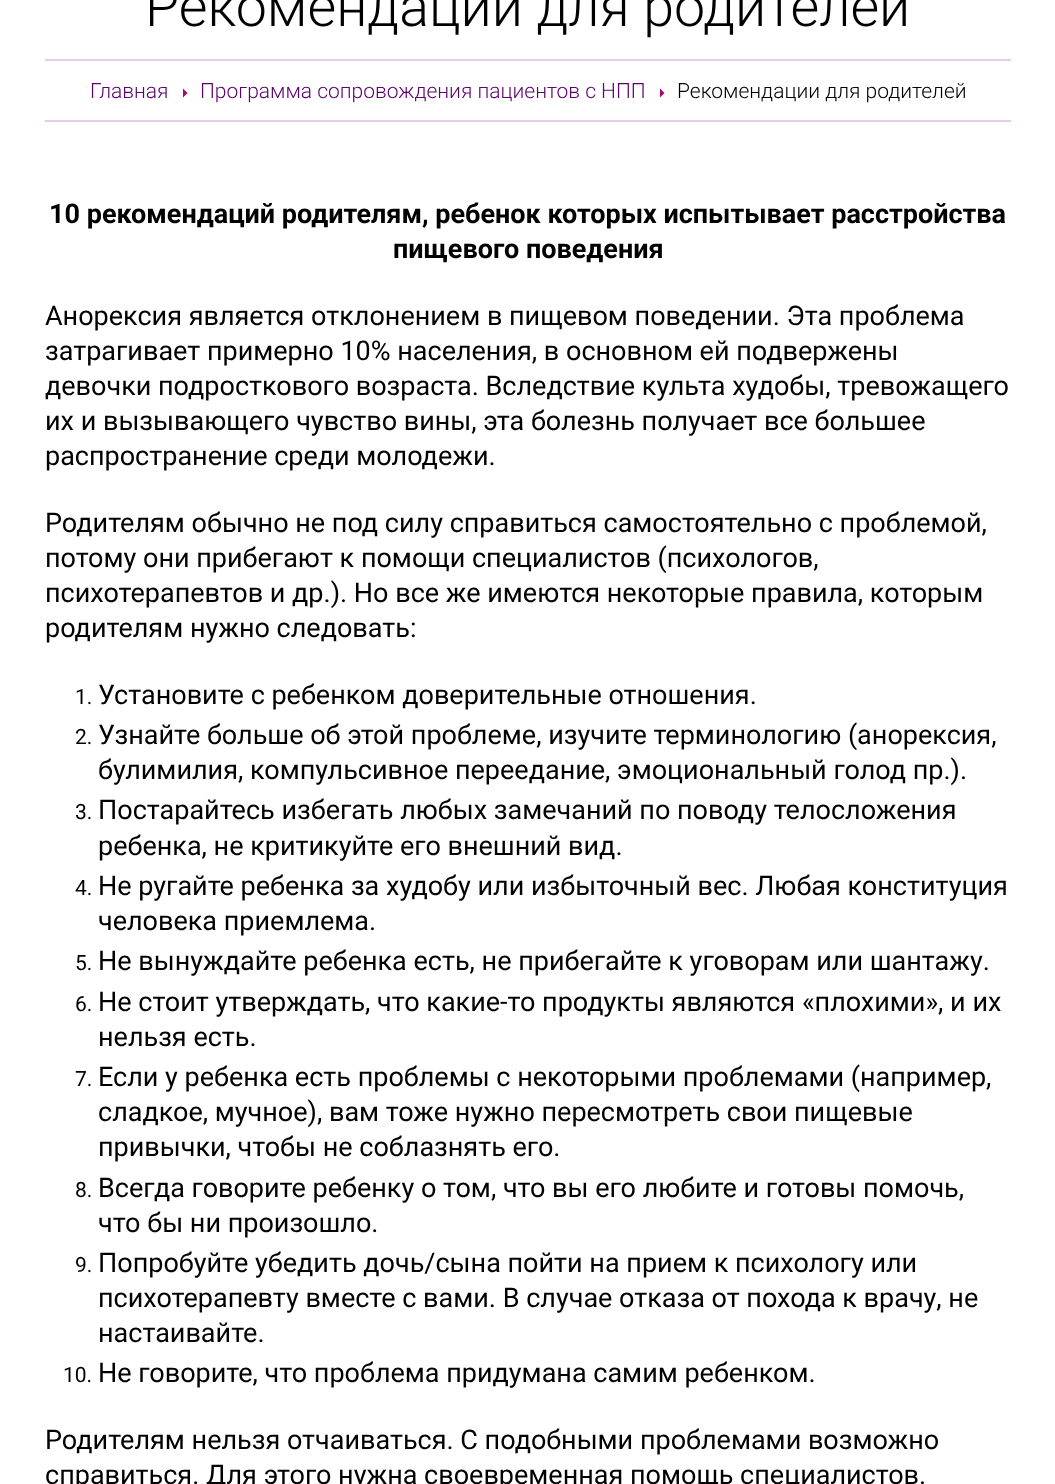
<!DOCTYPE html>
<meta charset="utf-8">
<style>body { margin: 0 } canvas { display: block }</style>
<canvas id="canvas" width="1055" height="1484"></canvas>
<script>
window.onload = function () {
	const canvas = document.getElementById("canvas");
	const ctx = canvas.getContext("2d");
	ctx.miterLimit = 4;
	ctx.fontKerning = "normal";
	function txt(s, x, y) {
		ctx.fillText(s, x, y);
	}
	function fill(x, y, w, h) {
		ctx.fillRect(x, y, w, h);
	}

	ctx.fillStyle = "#FFFFFF";
	fill(0, 0, 1055, 1484);
	ctx.fillStyle = "#E4CCF1";
	fill(45, 59, 966, 2);
	fill(45, 120, 966, 2);
	ctx.fillStyle = "#B00170";
	ctx.beginPath();
	ctx.moveTo(183, 97.5);
	ctx.lineTo(183, 88.5);
	ctx.lineTo(187.5, 93);
	ctx.closePath();
	ctx.fill();
	ctx.beginPath();
	ctx.moveTo(660, 97.5);
	ctx.lineTo(660, 88.5);
	ctx.lineTo(664.5, 93);
	ctx.closePath();
	ctx.fill();
	ctx.font = "300 55.5px Roboto";
	ctx.fillStyle = "#000000";
	txt("Рекомендации для родителей", 145, 26);
	ctx.font = "300 21px Roboto";
	ctx.fillStyle = "#5C036C";
	txt("Главная", 90, 98);
	txt("Программа сопровождения пациентов с НПП", 200, 98);
	ctx.fillStyle = "#000000";
	txt("Рекомендации для родителей", 677, 98);
	ctx.font = "bold 27px Roboto";
	txt("10 рекомендаций родителям, ребенок которых испытывает расстройства", 49, 223);
	txt("пищевого поведения", 393, 258);
	ctx.font = "27px Roboto";
	txt("Анорексия является отклонением в пищевом поведении. Эта проблема", 45, 325);
	txt("затрагивает примерно 10% населения, в основном ей подвержены", 45, 360);
	txt("девочки подросткового возраста. Вследствие культа худобы, тревожащего", 45, 395);
	txt("их и вызывающего чувство вины, эта болезнь получает все большее", 45, 430);
	txt("распространение среди молодежи.", 45, 465);
	txt("Родителям обычно не под силу справиться самостоятельно с проблемой,", 45, 532);
	txt("потому они прибегают к помощи специалистов (психологов,", 45, 567);
	txt("психотерапевтов и др.). Но все же имеются некоторые правила, которым", 45, 602);
	txt("родителям нужно следовать:", 45, 637);
	ctx.font = "21px Roboto";
	txt("1.", 75, 704);
	ctx.font = "27px Roboto";
	txt("Установите с ребенком доверительные отношения.", 98, 704);
	ctx.font = "21px Roboto";
	txt("2.", 75, 744);
	ctx.font = "27px Roboto";
	txt("Узнайте больше об этой проблеме, изучите терминологию (анорексия,", 98, 744);
	txt("булимилия, компульсивное переедание, эмоциональный голод пр.).", 98, 779);
	ctx.font = "21px Roboto";
	txt("3.", 75, 819);
	ctx.font = "27px Roboto";
	txt("Постарайтесь избегать любых замечаний по поводу телосложения", 98, 819);
	txt("ребенка, не критикуйте его внешний вид.", 98, 855);
	ctx.font = "21px Roboto";
	txt("4.", 75, 895);
	ctx.font = "27px Roboto";
	txt("Не ругайте ребенка за худобу или избыточный вес. Любая конституция", 98, 895);
	txt("человека приемлема.", 98, 930);
	ctx.font = "21px Roboto";
	txt("5.", 75, 970);
	ctx.font = "27px Roboto";
	txt("Не вынуждайте ребенка есть, не прибегайте к уговорам или шантажу.", 98, 970);
	ctx.font = "21px Roboto";
	txt("6.", 75, 1011);
	ctx.font = "27px Roboto";
	txt("Не стоит утверждать, что какие-то продукты являются «плохими», и их", 98, 1011);
	txt("нельзя есть.", 98, 1046);
	ctx.font = "21px Roboto";
	txt("7.", 75, 1086);
	ctx.font = "27px Roboto";
	txt("Если у ребенка есть проблемы с некоторыми проблемами (например,", 98, 1086);
	txt("сладкое, мучное), вам тоже нужно пересмотреть свои пищевые", 98, 1121);
	txt("привычки, чтобы не соблазнять его.", 98, 1156);
	ctx.font = "21px Roboto";
	txt("8.", 75, 1197);
	ctx.font = "27px Roboto";
	txt("Всегда говорите ребенку о том, что вы его любите и готовы помочь,", 98, 1197);
	txt("что бы ни произошло.", 98, 1232);
	ctx.font = "21px Roboto";
	txt("9.", 75, 1272);
	ctx.font = "27px Roboto";
	txt("Попробуйте убедить дочь/сына пойти на прием к психологу или", 98, 1272);
	txt("психотерапевту вместе с вами. В случае отказа от похода к врачу, не", 98, 1307);
	txt("настаивайте.", 98, 1342);
	ctx.font = "21px Roboto";
	txt("10.", 63, 1382);
	ctx.font = "27px Roboto";
	txt("Не говорите, что проблема придумана самим ребенком.", 98, 1382);
	txt("Родителям нельзя отчаиваться. С подобными проблемами возможно", 45, 1449);
	txt("справиться. Для этого нужна своевременная помощь специалистов.", 45, 1484);
};
</script>
